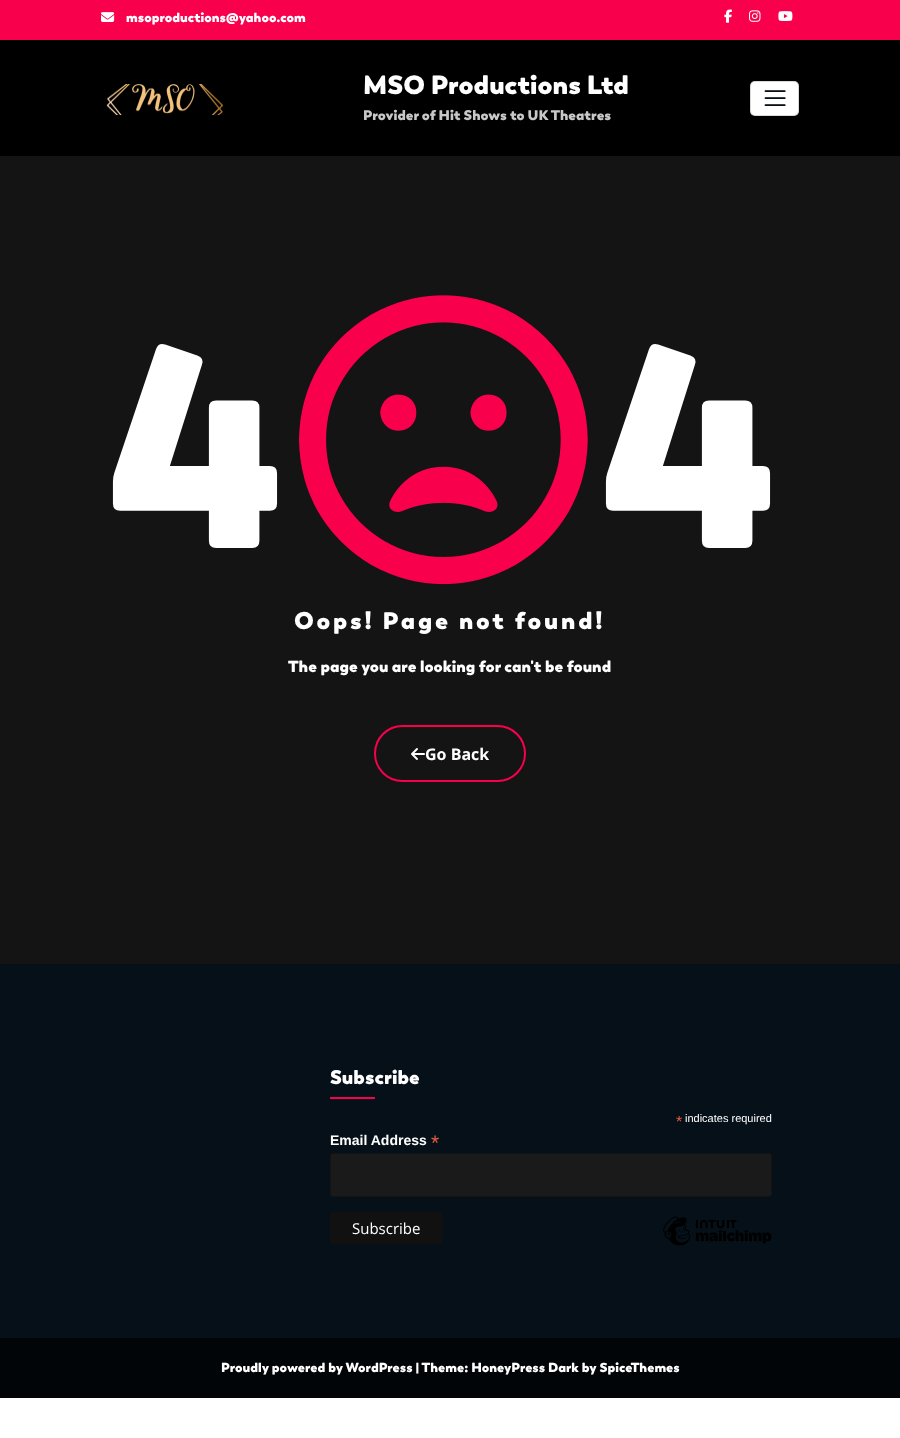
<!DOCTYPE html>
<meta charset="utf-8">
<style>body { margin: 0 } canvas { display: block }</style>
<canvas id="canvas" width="900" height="1438"></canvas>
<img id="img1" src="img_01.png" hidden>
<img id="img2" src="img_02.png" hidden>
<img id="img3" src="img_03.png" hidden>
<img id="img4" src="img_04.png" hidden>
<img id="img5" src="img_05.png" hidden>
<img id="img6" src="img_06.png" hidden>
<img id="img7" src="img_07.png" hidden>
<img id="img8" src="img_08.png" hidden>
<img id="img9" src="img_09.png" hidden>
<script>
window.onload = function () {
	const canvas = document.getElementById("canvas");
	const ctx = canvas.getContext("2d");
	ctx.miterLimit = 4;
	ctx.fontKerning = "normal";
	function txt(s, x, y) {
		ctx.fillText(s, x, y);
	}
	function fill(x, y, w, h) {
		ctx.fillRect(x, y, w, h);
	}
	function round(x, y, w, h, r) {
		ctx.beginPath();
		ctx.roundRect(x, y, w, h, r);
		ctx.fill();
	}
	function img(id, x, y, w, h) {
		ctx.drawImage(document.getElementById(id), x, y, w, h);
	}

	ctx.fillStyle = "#FFFFFF";
	fill(0, 0, 900, 1438);
	ctx.fillStyle = "#F9004D";
	fill(0, 0, 900, 40);
	img("img1", 101, 12, 14, 10);
	img("img2", 724, 9, 8, 14);
	img("img3", 749, 10, 12, 12);
	img("img4", 778, 11, 15, 10);
	ctx.fillStyle = "#000000";
	fill(0, 40, 900, 116);
	img("img5", 106, 84, 118, 31);
	ctx.fillStyle = "#FFFFFF";
	round(750, 81, 49, 35, 5);
	ctx.beginPath();
	ctx.roundRect(750.5, 81.5, 48, 34, 4.5);
	ctx.strokeStyle = "rgba(0, 0, 0, 0.15)";
	ctx.stroke();
	img("img6", 764, 90, 22, 16);
	ctx.fillStyle = "#141414";
	fill(0, 156, 900, 808);
	img("img7", 299, 295, 289, 290);
	ctx.beginPath();
	ctx.roundRect(375, 726, 150, 55, 27.5);
	ctx.strokeStyle = "#F9004D";
	ctx.lineWidth = 2;
	ctx.stroke();
	img("img8", 411, 748, 14, 12);
	ctx.fillStyle = "#061018";
	fill(0, 964, 900, 374);
	ctx.fillStyle = "#F9004D";
	fill(330, 1097, 45, 2);
	ctx.fillStyle = "#1A1A1A";
	ctx.beginPath();
	ctx.roundRect(330.5, 1153.5, 441, 43, 2.5);
	ctx.fill();
	ctx.strokeStyle = "#141414";
	ctx.lineWidth = 1;
	ctx.stroke();
	ctx.fillStyle = "#111111";
	round(330, 1212, 113, 32, 4);
	img("img9", 663, 1216, 109, 30);
	ctx.fillStyle = "#020508";
	fill(0, 1338, 900, 60);
	ctx.font = "900 13.15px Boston";
	ctx.fillStyle = "#FFFFFF";
	txt("msoproductions@yahoo.com", 126, 22);
	ctx.font = "900 26.25px Boston";
	txt("MSO Productions Ltd", 363, 94);
	ctx.font = "900 14px Boston";
	ctx.fillStyle = "#C8C8C8";
	txt("Provider of Hit Shows to UK Theatres", 363, 120);
	ctx.letterSpacing = "13px";
	ctx.font = "900 289px Boston";
	ctx.fillStyle = "#FFFFFF";
	txt("4", 108, 548);
	txt("4", 601, 548);
	ctx.letterSpacing = "2.8px";
	ctx.font = "900 24px Boston";
	txt("Oops! Page not found!", 294, 629);
	ctx.letterSpacing = "0px";
	ctx.font = "900 16px Boston";
	txt("The page you are looking for can't be found", 288, 672);
	ctx.font = "bold 16px Open Sans";
	txt("Go Back", 425, 760);
	ctx.font = "900 19.5px Boston";
	txt("Subscribe", 330, 1084);
	ctx.font = "16px Liberation Sans";
	ctx.fillStyle = "#E85C41";
	txt("*", 676, 1127);
	ctx.font = "11px Liberation Sans";
	ctx.fillStyle = "#FFFFFF";
	txt("indicates required", 685, 1122);
	ctx.font = "bold 14px Liberation Sans";
	txt("Email Address", 330, 1145);
	ctx.font = "21px Liberation Sans";
	ctx.fillStyle = "#E85C41";
	txt("*", 431, 1150);
	ctx.font = "15px Open Sans";
	ctx.fillStyle = "#FFFFFF";
	txt("Subscribe", 352, 1234);
	ctx.font = "900 13.15px Boston";
	txt("Proudly powered by WordPress | Theme: HoneyPress Dark by SpiceThemes", 221, 1372);
};
</script>
